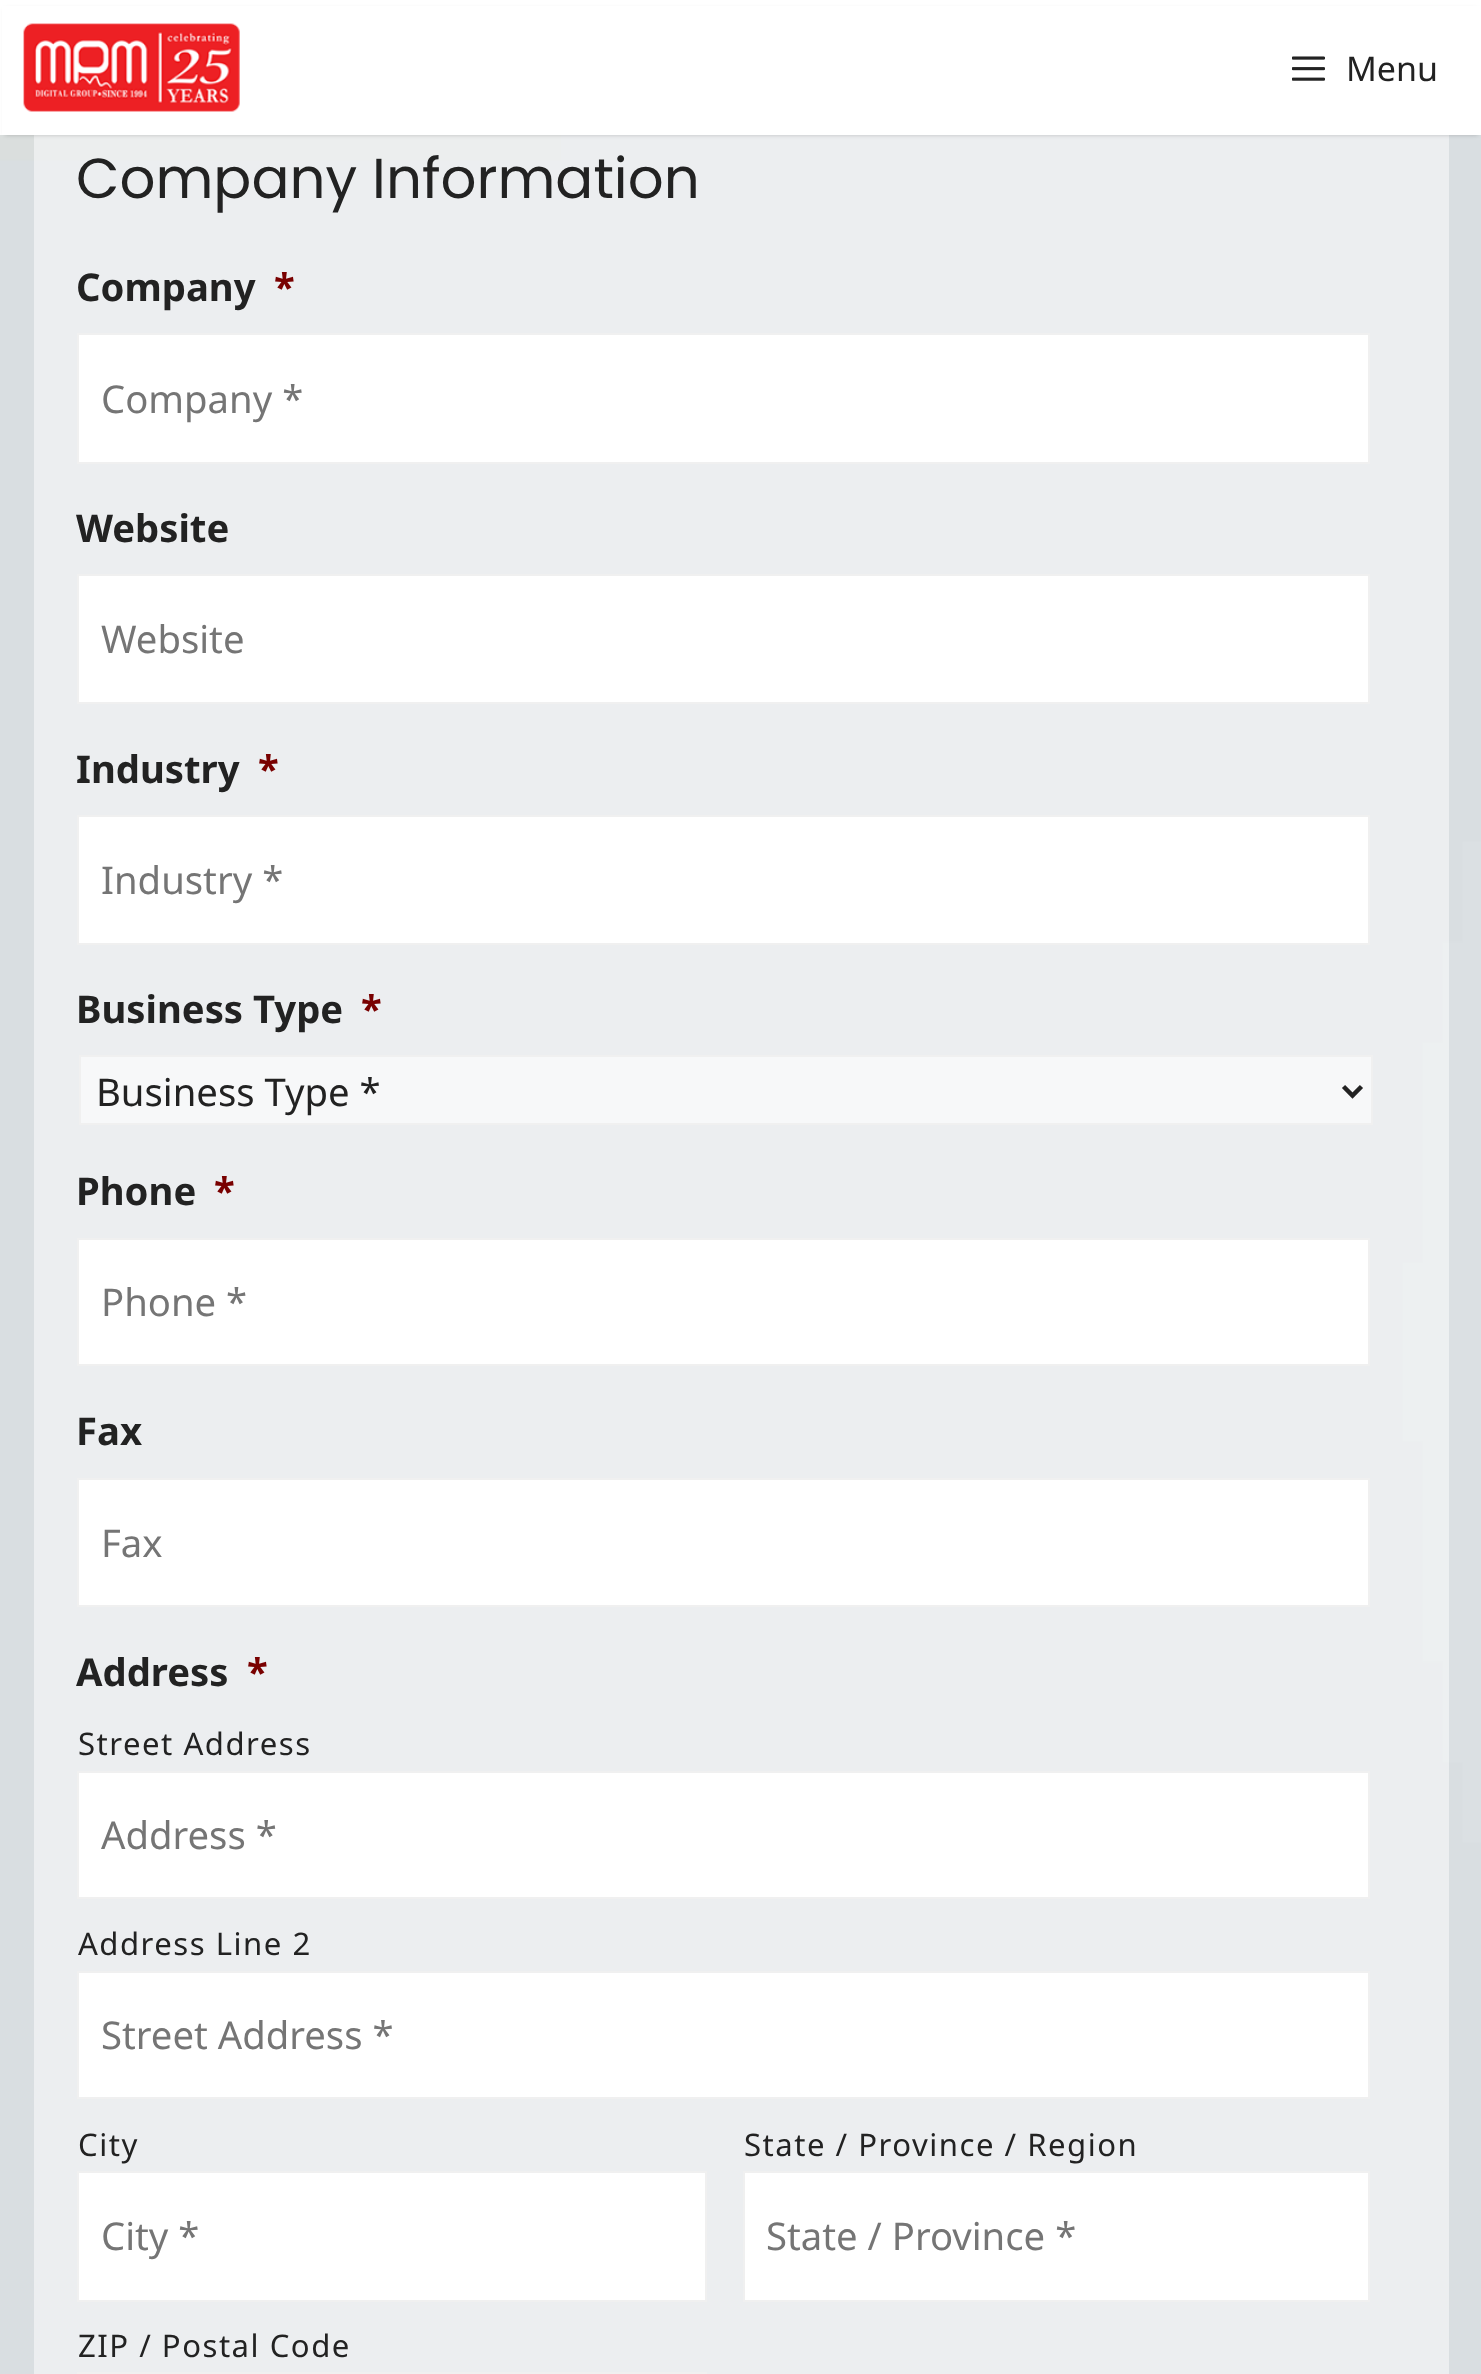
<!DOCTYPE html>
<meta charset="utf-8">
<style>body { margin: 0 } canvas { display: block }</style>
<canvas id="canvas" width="1481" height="2374"></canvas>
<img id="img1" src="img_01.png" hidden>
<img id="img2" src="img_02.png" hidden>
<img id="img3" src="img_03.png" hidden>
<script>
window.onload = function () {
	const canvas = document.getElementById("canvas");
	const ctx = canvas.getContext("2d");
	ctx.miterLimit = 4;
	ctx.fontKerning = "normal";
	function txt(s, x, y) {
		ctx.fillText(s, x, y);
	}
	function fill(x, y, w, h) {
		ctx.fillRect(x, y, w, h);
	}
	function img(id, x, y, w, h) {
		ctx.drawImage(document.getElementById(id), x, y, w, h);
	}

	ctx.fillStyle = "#FFFFFF";
	fill(0, 0, 1481, 2374);
	img("img1", 0, 135, 1481, 2239);
	ctx.fillStyle = "rgba(0, 0, 0, 0.2)";
	ctx.filter = "blur(2px)";
	ctx.beginPath();
	ctx.rect(5, 9, 1473, 126);
	ctx.fill();
	ctx.filter = "none";
	ctx.fillStyle = "#FFFFFF";
	fill(2, 6, 1479, 129);
	img("img2", 23, 23, 217, 89);
	img("img3", 1292, 56, 33, 25);
	ctx.beginPath();
	ctx.rect(78, 334, 1291, 129);
	ctx.fill();
	ctx.strokeStyle = "#F0F0F0";
	ctx.lineWidth = 2;
	ctx.stroke();
	ctx.beginPath();
	ctx.rect(78, 575, 1291, 128);
	ctx.fill();
	ctx.stroke();
	ctx.beginPath();
	ctx.rect(78, 816, 1291, 128);
	ctx.fill();
	ctx.stroke();
	ctx.fillStyle = "#F7F8F9";
	ctx.beginPath();
	ctx.rect(80, 1056, 1292, 68);
	ctx.fill();
	ctx.stroke();
	ctx.beginPath();
	ctx.moveTo(1343.5, 1086.5);
	ctx.lineTo(1352.5, 1095.5);
	ctx.lineTo(1361.5, 1086.5);
	ctx.strokeStyle = "#222222";
	ctx.lineWidth = 4.5;
	ctx.stroke();
	ctx.fillStyle = "#FFFFFF";
	ctx.beginPath();
	ctx.rect(78, 1239, 1291, 126);
	ctx.fill();
	ctx.strokeStyle = "#F0F0F0";
	ctx.lineWidth = 2;
	ctx.stroke();
	ctx.beginPath();
	ctx.rect(78, 1479, 1291, 127);
	ctx.fill();
	ctx.stroke();
	ctx.beginPath();
	ctx.rect(78, 1772, 1291, 126);
	ctx.fill();
	ctx.stroke();
	ctx.beginPath();
	ctx.rect(78, 1972, 1291, 126);
	ctx.fill();
	ctx.stroke();
	ctx.beginPath();
	ctx.rect(78, 2172, 628, 129);
	ctx.fill();
	ctx.stroke();
	ctx.beginPath();
	ctx.rect(744, 2172, 625, 129);
	ctx.fill();
	ctx.stroke();
	ctx.strokeRect(78, 2373, 628, 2);
	ctx.font = "34px Noto Sans";
	ctx.fillStyle = "#222222";
	txt("Menu", 1346, 81);
	ctx.font = "56.25px Poppins";
	txt("Company Information", 76, 198);
	ctx.font = "bold 38.25px Noto Sans";
	txt("Company", 76, 301);
	ctx.fillStyle = "#790000";
	txt("*", 274, 301);
	ctx.font = "38.25px Noto Sans";
	ctx.fillStyle = "#757575";
	txt("Company *", 101, 413);
	ctx.font = "bold 38.25px Noto Sans";
	ctx.fillStyle = "#222222";
	txt("Website", 76, 542);
	ctx.font = "38.25px Noto Sans";
	ctx.fillStyle = "#757575";
	txt("Website", 101, 653);
	ctx.font = "bold 38.25px Noto Sans";
	ctx.fillStyle = "#222222";
	txt("Industry", 76, 783);
	ctx.fillStyle = "#790000";
	txt("*", 258, 783);
	ctx.font = "38.25px Noto Sans";
	ctx.fillStyle = "#757575";
	txt("Industry *", 101, 894);
	ctx.font = "bold 38.25px Noto Sans";
	ctx.fillStyle = "#222222";
	txt("Business Type", 76, 1023);
	ctx.fillStyle = "#790000";
	txt("*", 361, 1023);
	ctx.font = "38.25px Noto Sans";
	ctx.fillStyle = "#222222";
	txt("Business Type *", 96, 1106);
	ctx.font = "bold 38.25px Noto Sans";
	txt("Phone", 76, 1205);
	ctx.fillStyle = "#790000";
	txt("*", 214, 1205);
	ctx.font = "38.25px Noto Sans";
	ctx.fillStyle = "#757575";
	txt("Phone *", 101, 1316);
	ctx.font = "bold 38.25px Noto Sans";
	ctx.fillStyle = "#222222";
	txt("Fax", 76, 1445);
	ctx.font = "38.25px Noto Sans";
	ctx.fillStyle = "#757575";
	txt("Fax", 101, 1557);
	ctx.font = "bold 38.25px Noto Sans";
	ctx.fillStyle = "#222222";
	txt("Address", 76, 1686);
	ctx.fillStyle = "#790000";
	txt("*", 247, 1686);
	ctx.letterSpacing = "1.5px";
	ctx.font = "31.1px Noto Sans";
	ctx.fillStyle = "#222222";
	txt("Street Address", 78, 1755);
	ctx.letterSpacing = "0px";
	ctx.font = "38.25px Noto Sans";
	ctx.fillStyle = "#757575";
	txt("Address *", 101, 1849);
	ctx.letterSpacing = "1.5px";
	ctx.font = "31.1px Noto Sans";
	ctx.fillStyle = "#222222";
	txt("Address Line 2", 78, 1955);
	ctx.letterSpacing = "0px";
	ctx.font = "38.25px Noto Sans";
	ctx.fillStyle = "#757575";
	txt("Street Address *", 101, 2049);
	ctx.letterSpacing = "1.5px";
	ctx.font = "31.1px Noto Sans";
	ctx.fillStyle = "#222222";
	txt("City", 78, 2156);
	ctx.letterSpacing = "0px";
	ctx.font = "38.25px Noto Sans";
	ctx.fillStyle = "#757575";
	txt("City *", 101, 2250);
	ctx.letterSpacing = "1.5px";
	ctx.font = "31.1px Noto Sans";
	ctx.fillStyle = "#222222";
	txt("State / Province / Region", 744, 2156);
	ctx.letterSpacing = "0px";
	ctx.font = "38.25px Noto Sans";
	ctx.fillStyle = "#757575";
	txt("State / Province *", 766, 2250);
	ctx.letterSpacing = "1.5px";
	ctx.font = "31.1px Noto Sans";
	ctx.fillStyle = "#222222";
	txt("ZIP / Postal Code", 78, 2357);
};
</script>
